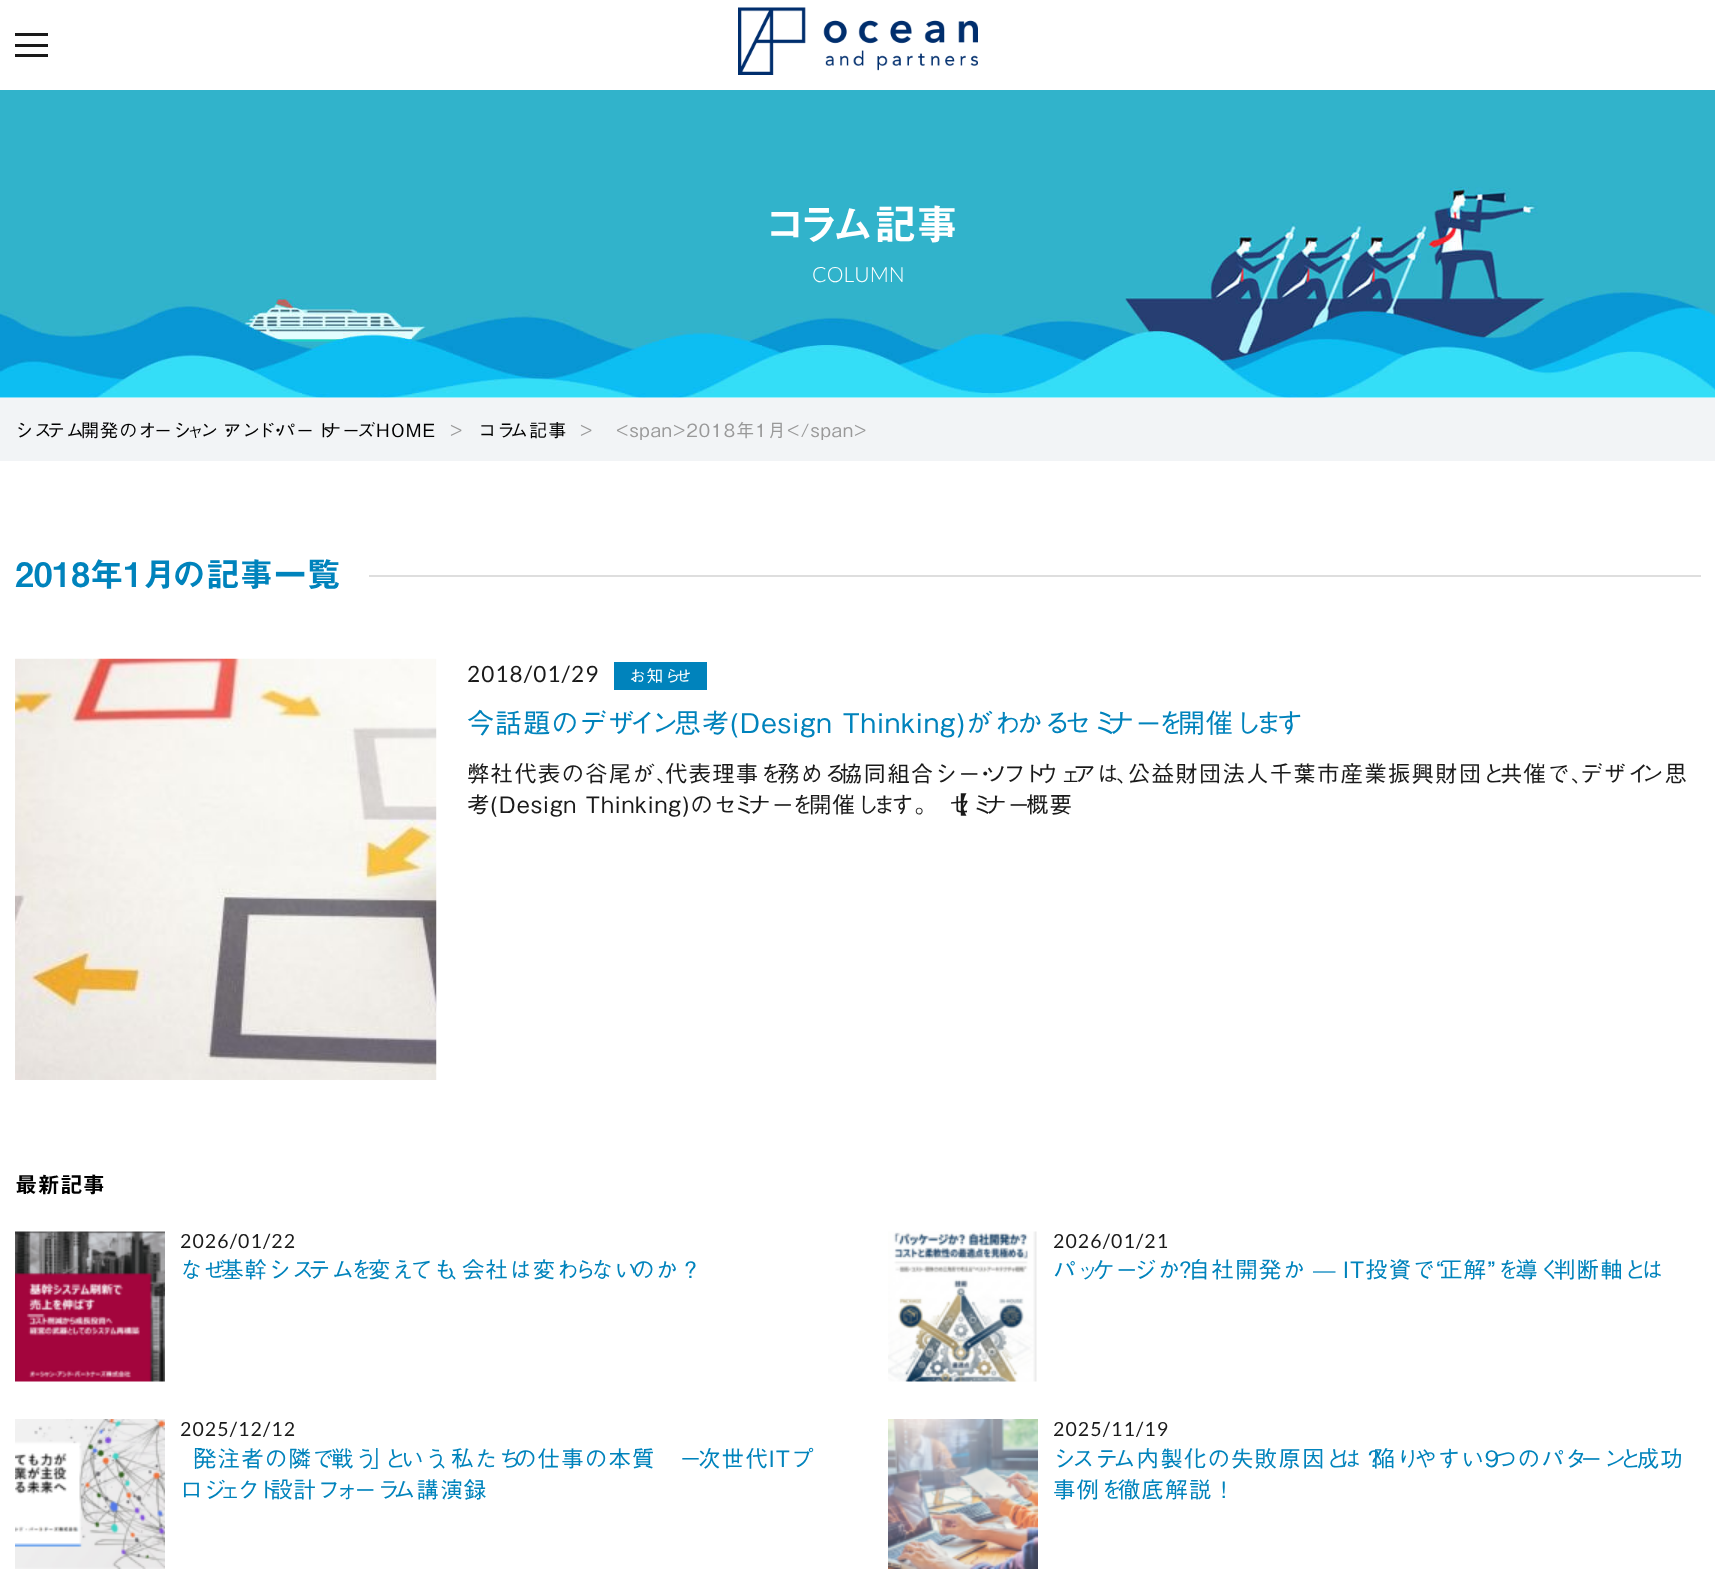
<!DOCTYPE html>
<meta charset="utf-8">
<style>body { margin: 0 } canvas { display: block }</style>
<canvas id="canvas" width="1715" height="1581"></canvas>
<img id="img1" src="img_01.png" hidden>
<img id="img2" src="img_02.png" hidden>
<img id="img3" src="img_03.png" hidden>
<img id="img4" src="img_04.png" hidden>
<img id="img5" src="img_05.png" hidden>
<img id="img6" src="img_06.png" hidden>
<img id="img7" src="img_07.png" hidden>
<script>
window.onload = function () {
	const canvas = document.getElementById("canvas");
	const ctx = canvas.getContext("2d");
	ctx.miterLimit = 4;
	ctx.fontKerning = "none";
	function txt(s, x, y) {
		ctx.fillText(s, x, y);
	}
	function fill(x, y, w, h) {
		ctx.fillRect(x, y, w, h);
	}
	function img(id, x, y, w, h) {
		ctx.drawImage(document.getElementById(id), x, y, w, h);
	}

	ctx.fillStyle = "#FFFFFF";
	fill(0, 0, 1715, 1581);
	ctx.fillStyle = "#1A1A1A";
	fill(15, 33, 33, 3);
	fill(15, 44, 33, 3);
	fill(15, 54, 33, 3);
	img("img1", 738, 7, 240, 68);
	img("img2", 0, 90, 1715, 308);
	ctx.fillStyle = "#F2F4F6";
	fill(0, 398, 1715, 63);
	ctx.fillStyle = "#DEDEDE";
	fill(369, 575, 1332, 2);
	img("img3", 15, 658, 422, 422);
	ctx.fillStyle = "#0083BC";
	fill(614, 662, 93, 28);
	img("img4", 15, 1231, 150, 151);
	img("img5", 888, 1231, 149, 151);
	img("img6", 15, 1419, 150, 150);
	img("img7", 888, 1419, 150, 150);
	ctx.font = "600 42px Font";
	ctx.fillStyle = "#FFFFFF";
	txt("コ", 764, 240);
	txt("ラ", 798, 240);
	txt("ム記事", 832, 240);
	ctx.font = "300 21px Lato";
	txt("COLUMN", 812, 282);
	ctx.letterSpacing = "1.12px";
	ctx.font = "18px Font";
	ctx.fillStyle = "#000000";
	txt("シス", 15, 437);
	txt("テム", 47, 437);
	txt("開発のオ", 81, 437);
	txt("ーシ", 154, 437);
	txt("ャ", 186, 437);
	txt("ン・", 200, 437);
	txt("アン", 223, 437);
	txt("ド", 257, 437);
	txt("・", 269, 437);
	txt("パート", 277, 437);
	txt("ナー", 323, 437);
	txt("ズHOME", 357, 437);
	ctx.fillStyle = "#999999";
	txt(">", 450, 437);
	ctx.fillStyle = "#000000";
	txt("コラ", 478, 437);
	txt("ム記事", 510, 437);
	ctx.fillStyle = "#999999";
	txt(">", 580, 437);
	ctx.font = "18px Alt";
	txt("<span>2018年1月<\/span>", 616, 437);
	ctx.letterSpacing = "0px";
	ctx.font = "600 33.75px Alt";
	ctx.fillStyle = "#0083BC";
	txt("2018年1月", 15, 587);
	ctx.font = "600 33.75px Font";
	txt("の記事一覧", 172, 587);
	ctx.letterSpacing = "1.12px";
	ctx.font = "22.5px Lato";
	ctx.fillStyle = "#1A1A1A";
	txt("2018/01/29", 467, 682);
	ctx.font = "16.5px Font";
	ctx.fillStyle = "#FFFFFF";
	txt("お知ら", 629, 682);
	txt("せ", 675, 682);
	ctx.font = "27px Font";
	ctx.fillStyle = "#0083BC";
	txt("今話題のデザ", 467, 733);
	txt("イ", 629, 733);
	txt("ン", 651, 733);
	txt("思考(Design Thinking)がわ", 674, 733);
	txt("かる", 1016, 733);
	txt("セミ", 1064, 733);
	txt("ナー", 1107, 733);
	txt("を", 1157, 733);
	txt("開催し", 1178, 733);
	txt("ま", 1255, 733);
	txt("す", 1276, 733);
	ctx.font = "22.5px Font";
	ctx.fillStyle = "#1A1A1A";
	txt("弊社代表の谷尾が、", 467, 782);
	txt("代表理事を", 665, 782);
	txt("務める", 777, 782);
	txt("協同組合シー", 840, 782);
	txt("・", 974, 782);
	txt("ソ", 984, 782);
	txt("フ", 1003, 782);
	txt("ト", 1022, 782);
	txt("ウェ", 1036, 782);
	txt("アは", 1073, 782);
	txt("、", 1116, 782);
	txt("公益財団法人千葉市産業振興財団と", 1128, 782);
	txt("共催で、", 1500, 782);
	txt("デザイ", 1580, 782);
	txt("ン思", 1641, 782);
	txt("考(Design Thinking)のセ", 467, 813);
	txt("ミ", 733, 813);
	txt("ナー", 748, 813);
	txt("を", 791, 813);
	txt("開催し", 809, 813);
	txt("ま", 873, 813);
	txt("す。", 891, 813);
	txt("【", 945, 813);
	txt("セミ", 948, 813);
	txt("ナー", 984, 813);
	txt("概要", 1026, 813);
	ctx.letterSpacing = "0px";
	ctx.font = "600 22.5px Font";
	ctx.fillStyle = "#000000";
	txt("最新記事", 15, 1193);
	ctx.letterSpacing = "1.12px";
	ctx.font = "19.5px Lato";
	ctx.fillStyle = "#1A1A1A";
	txt("2026/01/22", 180, 1248);
	ctx.font = "22.5px Font";
	ctx.fillStyle = "#0083BC";
	txt("なぜ", 180, 1278);
	txt("基幹シス", 221, 1278);
	txt("テム", 308, 1278);
	txt("を", 350, 1278);
	txt("変え", 368, 1278);
	txt("ても", 410, 1278);
	txt("、", 449, 1278);
	txt("会社は変わ", 462, 1278);
	txt("ら", 574, 1278);
	txt("ない", 591, 1278);
	txt("のか？", 632, 1278);
	ctx.font = "19.5px Lato";
	ctx.fillStyle = "#1A1A1A";
	txt("2026/01/21", 1053, 1248);
	ctx.font = "22.5px Font";
	ctx.fillStyle = "#0083BC";
	txt("パッ", 1053, 1278);
	txt("ケー", 1092, 1278);
	txt("ジか", 1134, 1278);
	txt("？", 1174, 1278);
	txt("自社開発か", 1188, 1278);
	txt("—", 1313, 1278);
	txt("IT投資で“", 1343, 1278);
	txt("正解”を", 1440, 1278);
	txt("導く", 1515, 1278);
	txt("判断軸と", 1553, 1278);
	txt("は", 1641, 1278);
	ctx.font = "19.5px Lato";
	ctx.fillStyle = "#1A1A1A";
	txt("2025/12/12", 180, 1436);
	ctx.font = "22.5px Font";
	ctx.fillStyle = "#0083BC";
	txt("「", 180, 1467);
	txt("発注者の隣で", 194, 1467);
	txt("戦う", 331, 1467);
	txt("」", 370, 1467);
	txt("と", 384, 1467);
	txt("いう", 401, 1467);
	txt("、", 438, 1467);
	txt("私たち", 451, 1467);
	txt("の仕事の本質　－", 514, 1467);
	txt("次世代ITプ", 698, 1467);
	txt("ロジ", 180, 1498);
	txt("ェ", 219, 1498);
	txt("ク", 237, 1498);
	txt("ト", 256, 1498);
	txt("設計フ", 270, 1498);
	txt("ォ", 336, 1498);
	txt("ーラ", 354, 1498);
	txt("ム講演録", 393, 1498);
	ctx.font = "19.5px Lato";
	ctx.fillStyle = "#1A1A1A";
	txt("2025/11/19", 1053, 1436);
	ctx.font = "22.5px Font";
	ctx.fillStyle = "#0083BC";
	txt("シ", 1053, 1467);
	txt("ステ", 1072, 1467);
	txt("ム内製化の失敗原因と", 1113, 1467);
	txt("は？", 1339, 1467);
	txt("陥り", 1373, 1467);
	txt("やすい9", 1414, 1467);
	txt("つのパタ", 1494, 1467);
	txt("ーン", 1580, 1467);
	txt("と", 1619, 1467);
	txt("成功", 1637, 1467);
	txt("事例を", 1053, 1498);
	txt("徹底解説！", 1118, 1498);
};
</script>
